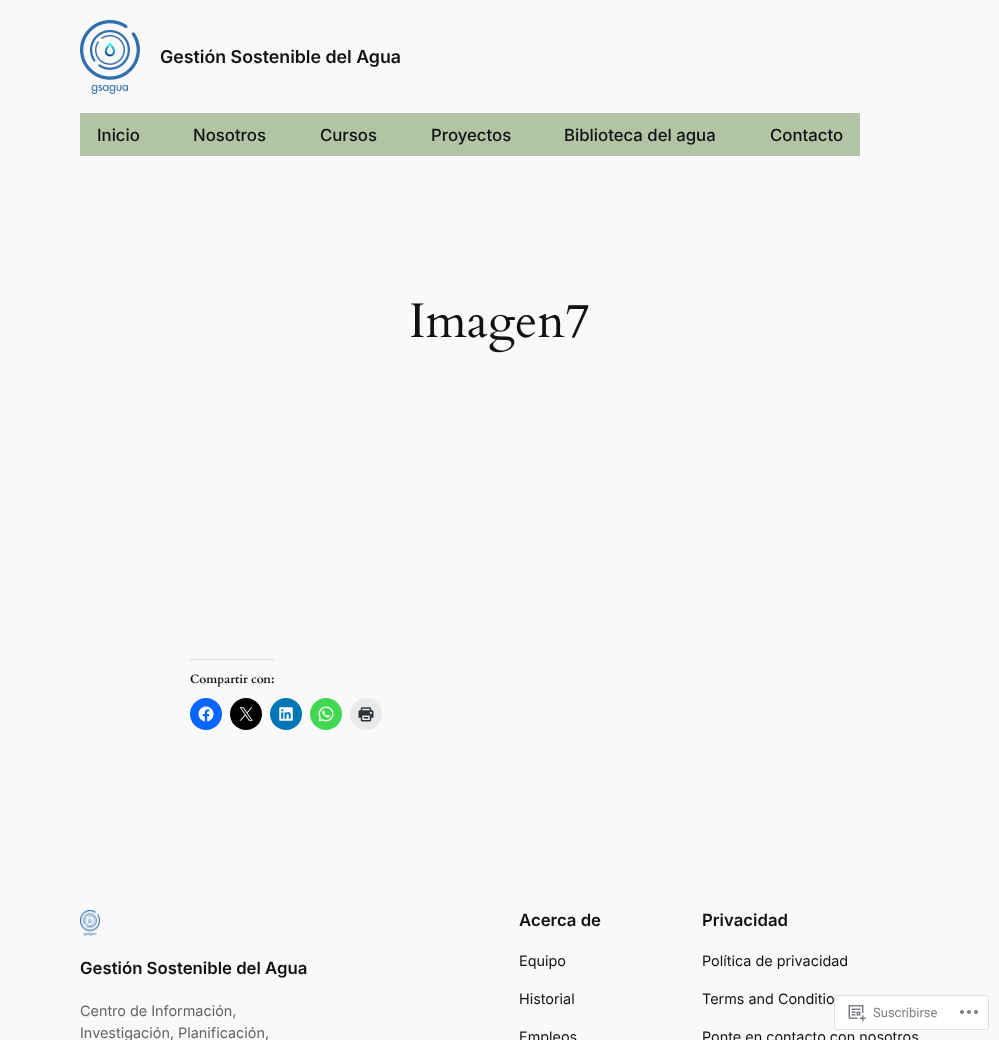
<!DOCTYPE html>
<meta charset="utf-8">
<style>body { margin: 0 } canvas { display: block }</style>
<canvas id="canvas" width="999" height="1040"></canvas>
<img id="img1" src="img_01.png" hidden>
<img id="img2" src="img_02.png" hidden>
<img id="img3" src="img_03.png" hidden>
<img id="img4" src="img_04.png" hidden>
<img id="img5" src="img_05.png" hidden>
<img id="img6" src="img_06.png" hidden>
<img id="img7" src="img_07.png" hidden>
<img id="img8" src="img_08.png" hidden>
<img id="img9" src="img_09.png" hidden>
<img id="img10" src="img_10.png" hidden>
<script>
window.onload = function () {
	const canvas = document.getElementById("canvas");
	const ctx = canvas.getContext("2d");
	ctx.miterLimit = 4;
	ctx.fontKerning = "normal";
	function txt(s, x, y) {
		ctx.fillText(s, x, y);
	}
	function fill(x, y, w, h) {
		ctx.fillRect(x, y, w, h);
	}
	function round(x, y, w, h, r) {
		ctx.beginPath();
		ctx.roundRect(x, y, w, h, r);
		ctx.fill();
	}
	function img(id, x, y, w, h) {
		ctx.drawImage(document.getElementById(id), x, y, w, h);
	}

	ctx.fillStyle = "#F9F9F9";
	fill(0, 0, 999, 1040);
	img("img1", 80, 20, 60, 74);
	ctx.fillStyle = "#B1C5A4";
	fill(80, 113, 780, 43);
	img("img2", 411, 303, 178, 50);
	ctx.fillStyle = "#DCDCDE";
	fill(190, 659, 84, 1);
	ctx.fillStyle = "#0866FF";
	ctx.beginPath();
	ctx.arc(206, 714, 16, 0, Math.PI * 2);
	ctx.fill();
	img("img3", 198, 706, 16, 16);
	ctx.fillStyle = "#000000";
	ctx.beginPath();
	ctx.arc(246, 714, 16, 0, Math.PI * 2);
	ctx.fill();
	img("img4", 239, 707, 14, 14);
	ctx.fillStyle = "#0077B5";
	ctx.beginPath();
	ctx.arc(286, 714, 16, 0, Math.PI * 2);
	ctx.fill();
	img("img5", 279, 707, 14, 14);
	ctx.fillStyle = "#43D854";
	ctx.beginPath();
	ctx.arc(326, 714, 16, 0, Math.PI * 2);
	ctx.fill();
	img("img6", 318, 706, 16, 16);
	ctx.fillStyle = "#E9E9E9";
	ctx.beginPath();
	ctx.arc(366, 714, 16, 0, Math.PI * 2);
	ctx.fill();
	img("img7", 358, 707, 16, 15);
	img("img8", 80, 910, 20, 26);
	ctx.font = "600 17.75px Inter";
	ctx.fillStyle = "#111111";
	txt("Gestión Sostenible del Agua", 160, 63);
	ctx.font = "500 16.75px Inter";
	txt("Inicio", 97, 141);
	txt("Nosotros", 193, 141);
	txt("Cursos", 320, 141);
	txt("Proyectos", 431, 141);
	txt("Biblioteca del agua", 564, 141);
	txt("Contacto", 770, 141);
	ctx.font = "bold 12px Cardo";
	txt("Compartir con:", 190, 683);
	ctx.font = "600 16.75px Inter";
	txt("Gestión Sostenible del Agua", 80, 974);
	ctx.font = "14.4px Inter";
	ctx.fillStyle = "#636363";
	txt("Centro de Información,", 80, 1016);
	txt("Investigación, Planificación,", 80, 1038);
	ctx.font = "600 16.75px Inter";
	ctx.fillStyle = "#111111";
	txt("Acerca de", 519, 926);
	ctx.font = "14.4px Inter";
	txt("Equipo", 519, 966);
	txt("Historial", 519, 1004);
	txt("Empleos", 519, 1042);
	ctx.font = "600 16.75px Inter";
	txt("Privacidad", 702, 926);
	ctx.font = "14.4px Inter";
	txt("Política de privacidad", 702, 966);
	txt("Terms and Conditio", 702, 1004);
	txt("Ponte en contacto con nosotros", 702, 1042);
	ctx.fillStyle = "rgba(255, 255, 255, 0.98)";
	round(834, 995, 155, 35, 3);
	ctx.beginPath();
	ctx.roundRect(834.5, 995.5, 154, 34, 2.5);
	ctx.strokeStyle = "rgba(220, 220, 222, 0.98)";
	ctx.stroke();
	img("img9", 848, 1005, 18, 17);
	ctx.font = "13px Roboto";
	ctx.fillStyle = "#7B7F84";
	txt("Suscribirse", 873, 1017);
	img("img10", 960, 1010, 18, 4);
};
</script>
